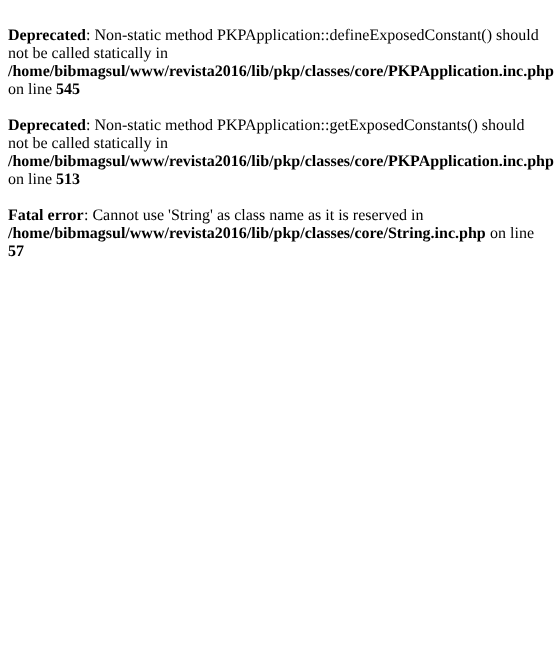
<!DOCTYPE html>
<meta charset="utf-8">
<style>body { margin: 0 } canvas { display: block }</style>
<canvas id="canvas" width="556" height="652"></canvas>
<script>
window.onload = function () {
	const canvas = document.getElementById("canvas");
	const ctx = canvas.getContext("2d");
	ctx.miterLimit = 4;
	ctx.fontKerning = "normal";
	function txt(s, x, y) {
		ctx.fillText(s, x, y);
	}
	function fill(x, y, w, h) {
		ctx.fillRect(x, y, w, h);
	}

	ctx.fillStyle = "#FFFFFF";
	fill(0, 0, 556, 652);
	ctx.font = "bold 16px Liberation Serif";
	ctx.fillStyle = "#000000";
	txt("Deprecated", 8, 40);
	ctx.font = "16px Liberation Serif";
	txt(": Non-static method PKPApplication::defineExposedConstant() should", 86, 40);
	txt("not be called statically in", 8, 58);
	ctx.font = "bold 16px Liberation Serif";
	txt("/home/bibmagsul/www/revista2016/lib/pkp/classes/core/PKPApplication.inc.php", 8, 76);
	ctx.font = "16px Liberation Serif";
	txt("on line", 8, 94);
	ctx.font = "bold 16px Liberation Serif";
	txt("545", 56, 94);
	txt("Deprecated", 8, 130);
	ctx.font = "16px Liberation Serif";
	txt(": Non-static method PKPApplication::getExposedConstants() should", 86, 130);
	txt("not be called statically in", 8, 148);
	ctx.font = "bold 16px Liberation Serif";
	txt("/home/bibmagsul/www/revista2016/lib/pkp/classes/core/PKPApplication.inc.php", 8, 166);
	ctx.font = "16px Liberation Serif";
	txt("on line", 8, 184);
	ctx.font = "bold 16px Liberation Serif";
	txt("513", 56, 184);
	txt("Fatal error", 8, 220);
	ctx.font = "16px Liberation Serif";
	txt(": Cannot use 'String' as class name as it is reserved in", 84, 220);
	ctx.font = "bold 16px Liberation Serif";
	txt("/home/bibmagsul/www/revista2016/lib/pkp/classes/core/String.inc.php", 8, 238);
	ctx.font = "16px Liberation Serif";
	txt("on line", 490, 238);
	ctx.font = "bold 16px Liberation Serif";
	txt("57", 8, 256);
};
</script>
